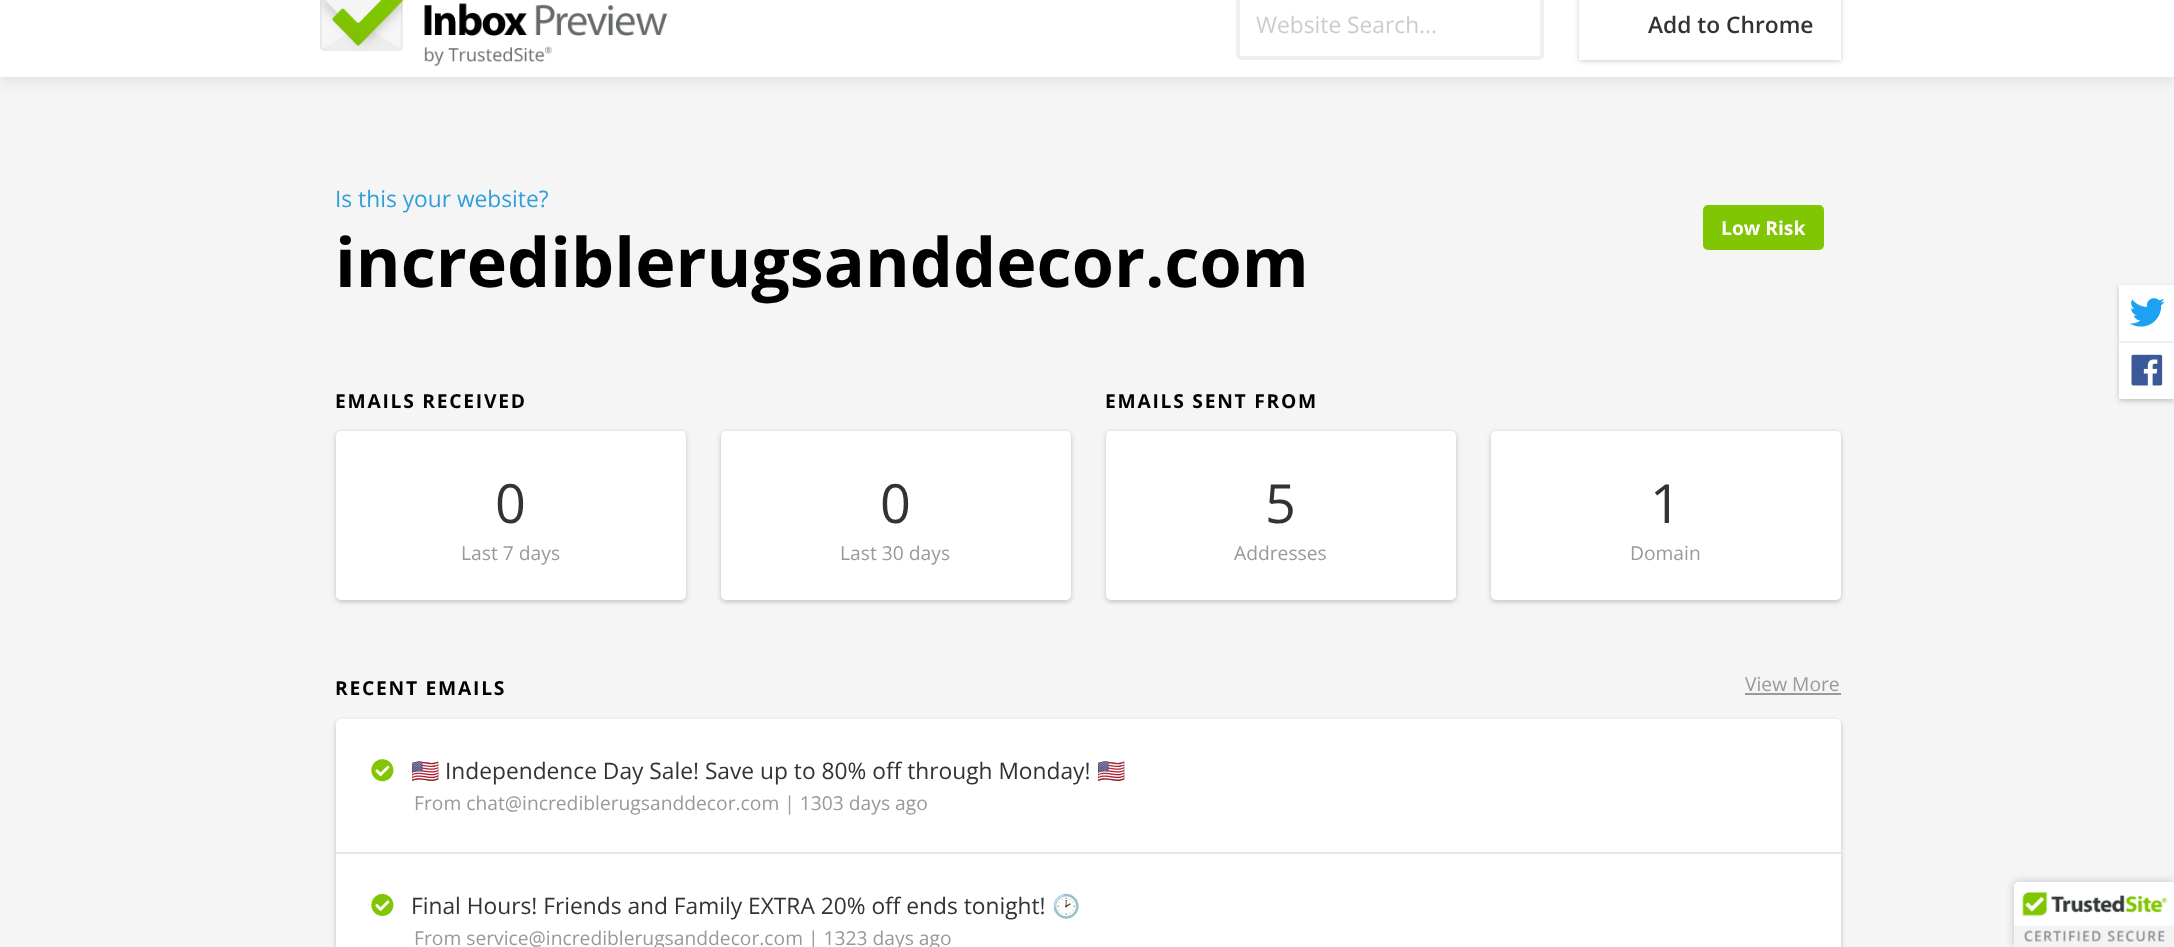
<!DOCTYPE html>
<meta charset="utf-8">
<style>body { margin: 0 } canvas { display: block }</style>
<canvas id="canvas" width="2174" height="947"></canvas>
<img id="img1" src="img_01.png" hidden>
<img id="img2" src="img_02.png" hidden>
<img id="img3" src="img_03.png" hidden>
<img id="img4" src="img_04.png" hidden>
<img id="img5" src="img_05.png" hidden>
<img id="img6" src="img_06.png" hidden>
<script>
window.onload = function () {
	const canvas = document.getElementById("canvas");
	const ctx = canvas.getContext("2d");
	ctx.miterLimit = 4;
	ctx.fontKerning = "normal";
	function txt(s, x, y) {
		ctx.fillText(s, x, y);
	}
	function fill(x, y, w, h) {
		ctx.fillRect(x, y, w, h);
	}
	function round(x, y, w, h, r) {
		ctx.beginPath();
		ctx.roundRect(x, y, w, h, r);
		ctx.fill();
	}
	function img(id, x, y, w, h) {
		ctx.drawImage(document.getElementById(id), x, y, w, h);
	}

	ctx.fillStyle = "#F5F5F5";
	fill(0, 0, 2174, 947);
	ctx.fillStyle = "rgba(0, 0, 0, 0.08)";
	ctx.filter = "blur(7px)";
	ctx.beginPath();
	ctx.rect(0, -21, 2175, 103);
	ctx.fill();
	ctx.filter = "none";
	ctx.fillStyle = "#FFFFFF";
	fill(0, 0, 2174, 77);
	img("img1", 320, 0, 348, 66);
	ctx.beginPath();
	ctx.roundRect(1238, -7, 304, 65, 3);
	ctx.strokeStyle = "#EFEFEF";
	ctx.lineWidth = 4;
	ctx.stroke();
	ctx.fillStyle = "rgba(0, 0, 0, 0.2)";
	ctx.filter = "blur(2.5px)";
	ctx.beginPath();
	ctx.rect(1579, -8, 262, 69);
	ctx.fill();
	ctx.filter = "none";
	ctx.fillStyle = "#FFFFFF";
	fill(1579, 0, 262, 60);
	ctx.fillStyle = "#80C602";
	round(1703, 205, 121, 45, 5);
	ctx.fillStyle = "rgba(0, 0, 0, 0.2)";
	ctx.filter = "blur(2.5px)";
	ctx.beginPath();
	ctx.roundRect(336, 432, 350, 170, 5);
	ctx.fill();
	ctx.filter = "none";
	ctx.fillStyle = "#FFFFFF";
	round(336, 431, 350, 169, 5);
	ctx.fillStyle = "rgba(0, 0, 0, 0.2)";
	ctx.filter = "blur(2.5px)";
	ctx.beginPath();
	ctx.roundRect(721, 432, 350, 170, 5);
	ctx.fill();
	ctx.filter = "none";
	ctx.fillStyle = "#FFFFFF";
	round(721, 431, 350, 169, 5);
	ctx.fillStyle = "rgba(0, 0, 0, 0.2)";
	ctx.filter = "blur(2.5px)";
	ctx.beginPath();
	ctx.roundRect(1106, 432, 350, 170, 5);
	ctx.fill();
	ctx.filter = "none";
	ctx.fillStyle = "#FFFFFF";
	round(1106, 431, 350, 169, 5);
	ctx.fillStyle = "rgba(0, 0, 0, 0.2)";
	ctx.filter = "blur(2.5px)";
	ctx.beginPath();
	ctx.roundRect(1491, 432, 350, 170, 5);
	ctx.fill();
	ctx.filter = "none";
	ctx.fillStyle = "#FFFFFF";
	round(1491, 431, 350, 169, 5);
	ctx.fillStyle = "#999999";
	fill(1745, 693, 96, 2);
	ctx.fillStyle = "rgba(0, 0, 0, 0.2)";
	ctx.filter = "blur(2.5px)";
	ctx.beginPath();
	ctx.roundRect(336, 721, 1505, 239, 5);
	ctx.fill();
	ctx.filter = "none";
	ctx.fillStyle = "#FFFFFF";
	round(336, 719, 1505, 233, 5);
	img("img2", 371, 759, 23, 23);
	ctx.fillStyle = "#E6E7E8";
	fill(336, 852, 1505, 2);
	img("img3", 371, 893, 23, 23);
	ctx.fillStyle = "rgba(0, 0, 0, 0.2)";
	ctx.filter = "blur(2.5px)";
	ctx.beginPath();
	ctx.rect(2119, 287, 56, 58);
	ctx.fill();
	ctx.filter = "none";
	ctx.fillStyle = "#FFFFFF";
	fill(2119, 285, 55, 56);
	ctx.fillStyle = "#F5F5F5";
	fill(2119, 341, 55, 2);
	img("img4", 2130, 298, 35, 29);
	ctx.fillStyle = "rgba(0, 0, 0, 0.2)";
	ctx.filter = "blur(2.5px)";
	ctx.beginPath();
	ctx.rect(2119, 345, 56, 56);
	ctx.fill();
	ctx.filter = "none";
	ctx.fillStyle = "#FFFFFF";
	fill(2119, 343, 55, 56);
	img("img5", 2131, 354, 32, 32);
	ctx.fillStyle = "rgba(0, 0, 0, 0.2)";
	ctx.filter = "blur(4.5px)";
	ctx.beginPath();
	ctx.roundRect(2014, 882, 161, 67, 4);
	ctx.fill();
	ctx.filter = "none";
	ctx.fillStyle = "#FFFFFF";
	ctx.beginPath();
	ctx.moveTo(2018, 882);
	ctx.lineTo(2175, 882);
	ctx.lineTo(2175, 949);
	ctx.lineTo(2014, 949);
	ctx.lineTo(2014, 886);
	ctx.bezierCurveTo(2014, 884, 2016, 882, 2018, 882);
	ctx.closePath();
	ctx.fill();
	img("img6", 2014, 882, 160, 65);
	ctx.font = "22.75px Open Sans";
	ctx.fillStyle = "#CCCCCC";
	txt("Website Search...", 1256, 33);
	ctx.font = "600 22.75px Open Sans";
	ctx.fillStyle = "#333333";
	txt("Add to Chrome", 1648, 33);
	ctx.font = "22.75px Open Sans";
	ctx.fillStyle = "#309FD8";
	txt("Is this your website?", 335, 207);
	ctx.font = "bold 19.25px Open Sans";
	ctx.fillStyle = "#FFFFFF";
	txt("Low Risk", 1721, 235);
	ctx.font = "bold 68.25px Open Sans";
	ctx.fillStyle = "#000000";
	txt("incrediblerugsanddecor.com", 335, 287);
	ctx.letterSpacing = "1.75px";
	ctx.font = "bold 19.25px Open Sans";
	txt("EMAILS RECEIVED", 335, 408);
	ctx.letterSpacing = "0px";
	ctx.font = "54px Open Sans";
	ctx.fillStyle = "#333333";
	txt("0", 495, 523);
	ctx.font = "19.25px Open Sans";
	ctx.fillStyle = "#999999";
	txt("Last 7 days", 461, 560);
	ctx.font = "54px Open Sans";
	ctx.fillStyle = "#333333";
	txt("0", 880, 523);
	ctx.font = "19.25px Open Sans";
	ctx.fillStyle = "#999999";
	txt("Last 30 days", 840, 560);
	ctx.letterSpacing = "1.75px";
	ctx.font = "bold 19.25px Open Sans";
	ctx.fillStyle = "#000000";
	txt("EMAILS SENT FROM", 1105, 408);
	ctx.letterSpacing = "0px";
	ctx.font = "54px Open Sans";
	ctx.fillStyle = "#333333";
	txt("5", 1265, 523);
	ctx.font = "19.25px Open Sans";
	ctx.fillStyle = "#999999";
	txt("Addresses", 1234, 560);
	ctx.font = "54px Open Sans";
	ctx.fillStyle = "#333333";
	txt("1", 1650, 523);
	ctx.font = "19.25px Open Sans";
	ctx.fillStyle = "#999999";
	txt("Domain", 1630, 560);
	ctx.letterSpacing = "1.75px";
	ctx.font = "bold 19.25px Open Sans";
	ctx.fillStyle = "#000000";
	txt("RECENT EMAILS", 335, 695);
	ctx.letterSpacing = "0px";
	ctx.font = "19.25px Open Sans";
	ctx.fillStyle = "#999999";
	txt("View More", 1745, 691);
	ctx.font = "22.75px Noto Color Emoji";
	ctx.fillStyle = "#333333";
	txt("🇺🇸", 411, 779);
	ctx.font = "22.75px Open Sans";
	txt("Independence Day Sale! Save up to 80% off through Monday!", 445, 779);
	ctx.font = "22.75px Noto Color Emoji";
	txt("🇺🇸", 1097, 779);
	ctx.font = "19.25px Open Sans";
	ctx.fillStyle = "#999999";
	txt("From chat@incrediblerugsanddecor.com | 1303 days ago", 414, 810);
	ctx.font = "22.75px Open Sans";
	ctx.fillStyle = "#333333";
	txt("Final Hours! Friends and Family EXTRA 20% off ends tonight!", 411, 914);
	ctx.font = "22.75px Noto Color Emoji";
	txt("🕑", 1052, 914);
	ctx.font = "19.25px Open Sans";
	ctx.fillStyle = "#999999";
	txt("From service@incrediblerugsanddecor.com | 1323 days ago", 414, 945);
};
</script>
